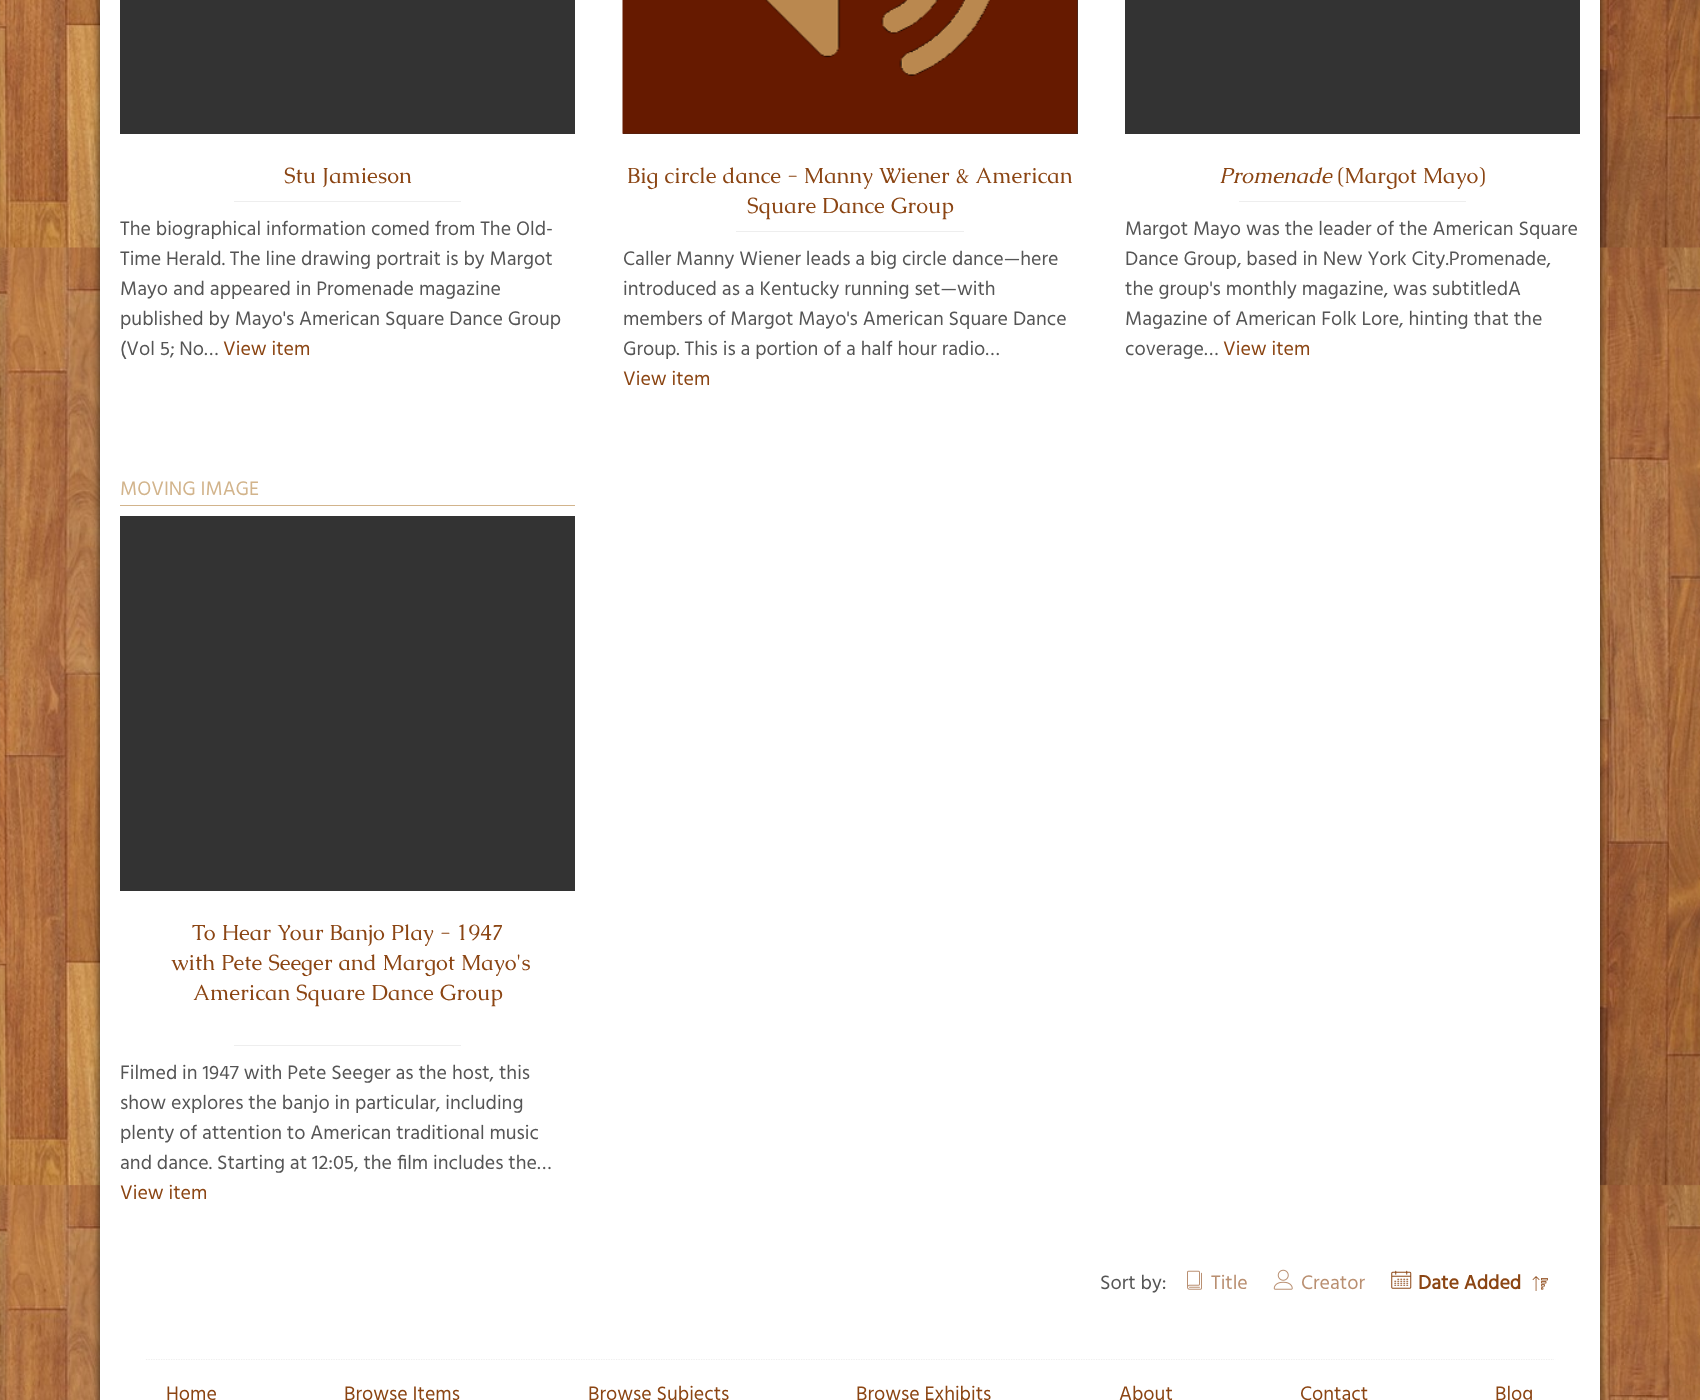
<!DOCTYPE html>
<meta charset="utf-8">
<style>body { margin: 0 } canvas { display: block }</style>
<canvas id="canvas" width="1700" height="1400"></canvas>
<img id="img1" src="img_01.png" hidden>
<img id="img2" src="img_02.png" hidden>
<img id="img3" src="img_03.png" hidden>
<img id="img4" src="img_04.png" hidden>
<img id="img5" src="img_05.png" hidden>
<img id="img6" src="img_06.png" hidden>
<script>
window.onload = function () {
	const canvas = document.getElementById("canvas");
	const ctx = canvas.getContext("2d");
	ctx.miterLimit = 4;
	ctx.fontKerning = "normal";
	function txt(s, x, y) {
		ctx.fillText(s, x, y);
	}
	function fill(x, y, w, h) {
		ctx.fillRect(x, y, w, h);
	}
	function img(id, x, y, w, h) {
		ctx.drawImage(document.getElementById(id), x, y, w, h);
	}

	ctx.fillStyle = "#FFFFFF";
	fill(0, 0, 1700, 1400);
	img("img1", 0, 0, 1700, 1400);
	ctx.fillStyle = "rgba(0, 0, 0, 0.7)";
	ctx.filter = "blur(4.5px)";
	ctx.beginPath();
	ctx.rect(100, -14, 1500, 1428);
	ctx.fill();
	ctx.filter = "none";
	ctx.fillStyle = "#FFFFFF";
	fill(100, 0, 1500, 1400);
	ctx.fillStyle = "#333333";
	fill(120, 0, 455, 134);
	ctx.fillStyle = "#EEEEEE";
	fill(234, 201, 227, 1);
	ctx.fillStyle = "#333333";
	fill(623, 0, 455, 134);
	img("img2", 622, 0, 456, 134);
	ctx.fillStyle = "#EEEEEE";
	fill(736, 231, 228, 1);
	ctx.fillStyle = "#333333";
	fill(1125, 0, 455, 134);
	ctx.fillStyle = "#EEEEEE";
	fill(1239, 201, 227, 1);
	ctx.fillStyle = "#D2B48C";
	fill(120, 505, 455, 1);
	ctx.fillStyle = "#333333";
	fill(120, 516, 455, 375);
	ctx.fillStyle = "#EEEEEE";
	fill(234, 1045, 227, 1);
	img("img3", 1187, 1270, 15, 20);
	img("img4", 1273, 1269, 20, 21);
	img("img5", 1391, 1270, 21, 19);
	img("img6", 1532, 1276, 16, 15);
	ctx.beginPath();
	ctx.moveTo(146, 1359.5);
	ctx.lineTo(1554, 1359.5);
	ctx.strokeStyle = "#EEEEEE";
	ctx.lineWidth = 1.2;
	ctx.setLineDash([1.25, 1.25]);
	ctx.stroke();
	ctx.font = "21.9px Caudex";
	ctx.fillStyle = "#8B4513";
	txt("Stu Jamieson", 284, 183);
	ctx.font = "20px Hind";
	ctx.fillStyle = "#555555";
	txt("The biographical information comed from The Old-", 120, 235);
	txt("Time Herald. The line drawing portrait is by Margot", 120, 265);
	txt("Mayo and appeared in Promenade magazine", 120, 295);
	txt("published by Mayo's American Square Dance Group", 120, 325);
	txt("(Vol 5; No…", 120, 355);
	ctx.fillStyle = "#8B4513";
	txt("View item", 223, 355);
	ctx.font = "21.9px Caudex";
	txt("Big circle dance - Manny Wiener & American", 627, 183);
	txt("Square Dance Group", 747, 213);
	ctx.font = "20px Hind";
	ctx.fillStyle = "#555555";
	txt("Caller Manny Wiener leads a big circle dance—here", 623, 265);
	txt("introduced as a Kentucky running set—with", 623, 295);
	txt("members of Margot Mayo's American Square Dance", 623, 325);
	txt("Group. This is a portion of a half hour radio…", 623, 355);
	ctx.fillStyle = "#8B4513";
	txt("View item", 623, 385);
	ctx.font = "italic 21.9px Caudex";
	txt("Promenade", 1219, 183);
	ctx.font = "21.9px Caudex";
	txt("(Margot Mayo)", 1337, 183);
	ctx.font = "20px Hind";
	ctx.fillStyle = "#555555";
	txt("Margot Mayo was the leader of the American Square", 1125, 235);
	txt("Dance Group, based in New York City.Promenade,", 1125, 265);
	txt("the group's monthly magazine, was subtitledA", 1125, 295);
	txt("Magazine of American Folk Lore, hinting that the", 1125, 325);
	txt("coverage…", 1125, 355);
	ctx.fillStyle = "#8B4513";
	txt("View item", 1223, 355);
	ctx.fillStyle = "#D2B48C";
	txt("MOVING IMAGE", 120, 495);
	ctx.font = "21.9px Caudex";
	ctx.fillStyle = "#8B4513";
	txt("To Hear Your Banjo Play - 1947", 192, 940);
	txt("with Pete Seeger and Margot Mayo's", 171, 970);
	txt("American Square Dance Group", 193, 1000);
	ctx.font = "20px Hind";
	ctx.fillStyle = "#555555";
	txt("Filmed in 1947 with Pete Seeger as the host, this", 120, 1079);
	txt("show explores the banjo in particular, including", 120, 1109);
	txt("plenty of attention to American traditional music", 120, 1139);
	txt("and dance. Starting at 12:05, the film includes the…", 120, 1169);
	ctx.fillStyle = "#8B4513";
	txt("View item", 120, 1199);
	ctx.fillStyle = "#555555";
	txt("Sort by:", 1100, 1289);
	ctx.fillStyle = "#B98F71";
	txt("Title", 1211, 1289);
	txt("Creator", 1301, 1289);
	ctx.font = "bold 20px Hind";
	ctx.fillStyle = "#8B4513";
	txt("Date Added", 1418, 1289);
	ctx.font = "20px Hind";
	txt("Home", 166, 1400);
	txt("Browse Items", 344, 1400);
	txt("Browse Subjects", 588, 1400);
	txt("Browse Exhibits", 856, 1400);
	txt("About", 1119, 1400);
	txt("Contact", 1300, 1400);
	txt("Blog", 1495, 1400);
};
</script>
